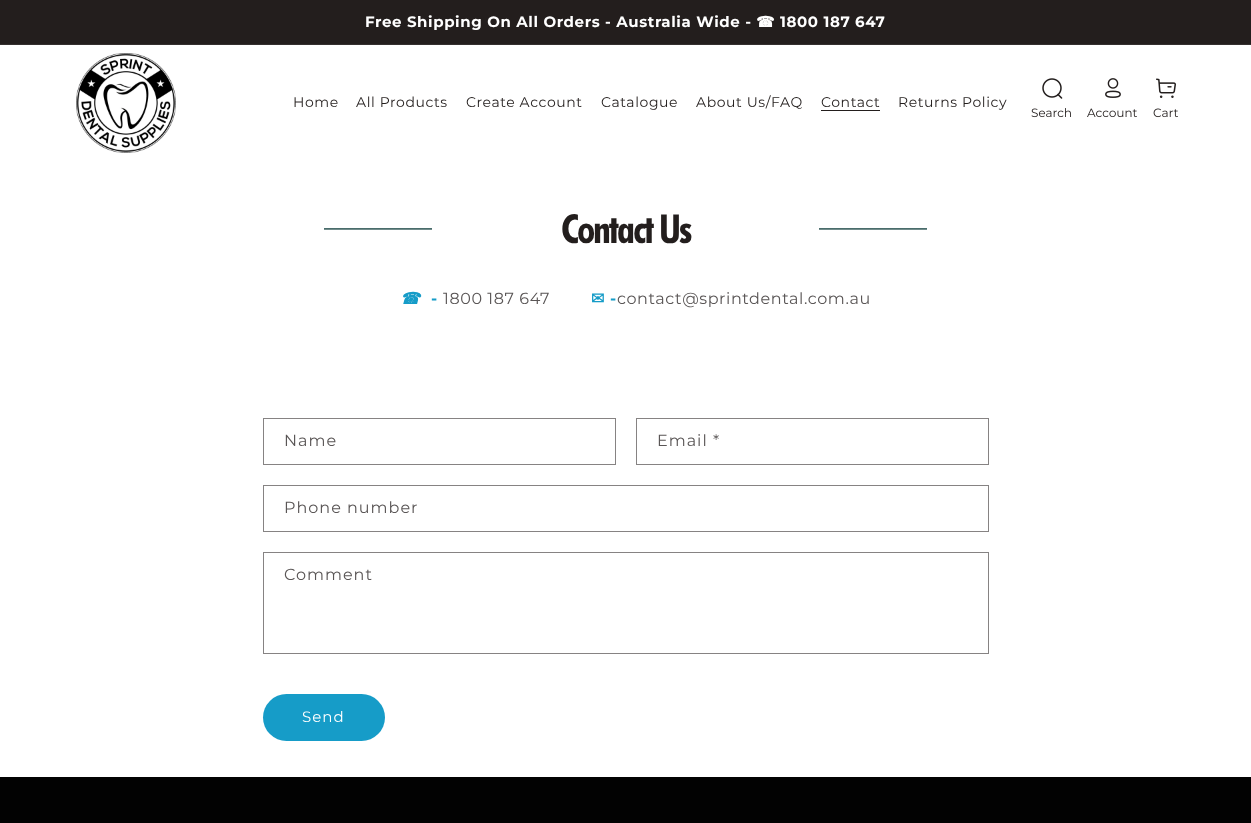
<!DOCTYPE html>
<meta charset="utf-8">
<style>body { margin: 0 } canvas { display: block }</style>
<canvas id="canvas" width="1251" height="823"></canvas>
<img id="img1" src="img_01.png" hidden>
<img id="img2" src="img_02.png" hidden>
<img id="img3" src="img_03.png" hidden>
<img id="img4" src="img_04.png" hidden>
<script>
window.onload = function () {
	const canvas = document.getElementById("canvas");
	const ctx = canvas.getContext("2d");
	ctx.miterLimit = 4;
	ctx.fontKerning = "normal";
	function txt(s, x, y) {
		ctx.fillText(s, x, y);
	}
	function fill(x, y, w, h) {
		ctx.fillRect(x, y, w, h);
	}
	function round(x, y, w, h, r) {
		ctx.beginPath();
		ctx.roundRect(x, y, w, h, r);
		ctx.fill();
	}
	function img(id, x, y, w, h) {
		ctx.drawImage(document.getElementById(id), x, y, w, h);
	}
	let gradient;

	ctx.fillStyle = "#FFFFFF";
	fill(0, 0, 1251, 823);
	ctx.fillStyle = "#231E1D";
	fill(0, 0, 1251, 44);
	ctx.fillStyle = "#35302F";
	fill(0, 44, 1251, 1);
	img("img1", 76, 53, 100, 100);
	ctx.fillStyle = "#231E1D";
	fill(821, 110, 59, 1);
	img("img2", 1031, 78, 40, 40);
	img("img3", 1087, 78, 50, 40);
	img("img4", 1153, 78, 25, 40);
	gradient = ctx.createLinearGradient(626, 228, 626, 230);
	gradient.addColorStop(0, "#365D5C");
	gradient.addColorStop(1, "#859C9B");
	ctx.fillStyle = gradient;
	fill(324, 228, 603, 2);
	ctx.fillStyle = "#FFFFFF";
	fill(432, 228, 387, 2);
	ctx.strokeStyle = "#868383";
	ctx.strokeRect(263.5, 418.5, 352, 46);
	ctx.strokeRect(636.5, 418.5, 352, 46);
	ctx.strokeRect(263.5, 485.5, 725, 46);
	ctx.strokeRect(263.5, 552.5, 725, 101);
	ctx.fillStyle = "#169CC8";
	round(263, 694, 122, 47, 23.5);
	ctx.fillStyle = "#020202";
	fill(0, 777, 1251, 46);
	ctx.letterSpacing = "0.6px";
	ctx.font = "bold 15px Montserrat";
	ctx.fillStyle = "#FFFFFF";
	txt("Free Shipping On All Orders - Australia Wide -", 365, 27);
	ctx.font = "bold 15px DejaVu Sans";
	txt("☎︎", 756, 27);
	ctx.font = "bold 15px Montserrat";
	txt("1800 187 647", 780, 27);
	ctx.font = "14px Montserrat";
	ctx.fillStyle = "#231E1D";
	txt("Home", 293, 107);
	txt("All Products", 356, 107);
	txt("Create Account", 466, 107);
	txt("Catalogue", 601, 107);
	txt("About Us/FAQ", 696, 107);
	txt("Contact", 821, 107);
	txt("Returns Policy", 898, 107);
	ctx.letterSpacing = "-2px";
	ctx.font = "bold 40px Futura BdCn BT";
	txt("Contact Us", 561, 243);
	ctx.letterSpacing = "0.6px";
	ctx.font = "italic bold 16px DejaVu Sans";
	ctx.fillStyle = "#169CC8";
	txt("☎︎", 400, 304);
	ctx.font = "bold 16px Montserrat";
	txt("-", 431, 304);
	ctx.font = "16px Montserrat";
	ctx.fillStyle = "#5A5656";
	txt("1800 187 647", 443, 304);
	ctx.font = "bold 16px DejaVu Sans";
	ctx.fillStyle = "#169CC8";
	txt("✉", 591, 304);
	ctx.font = "bold 16px Montserrat";
	txt("-", 610, 304);
	ctx.font = "16px Montserrat";
	ctx.fillStyle = "#5A5656";
	txt("contact@sprintdental.com.au", 617, 304);
	ctx.letterSpacing = "1px";
	txt("Name", 284, 446);
	txt("Email *", 657, 446);
	txt("Phone number", 284, 513);
	txt("Comment", 284, 580);
	ctx.font = "15px Montserrat";
	ctx.fillStyle = "#FFFFFF";
	txt("Send", 302, 722);
};
</script>
